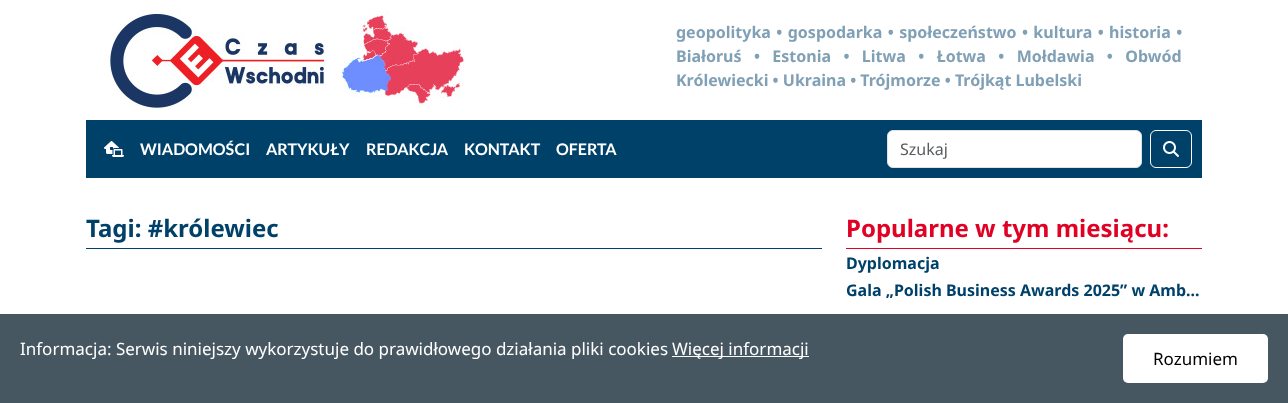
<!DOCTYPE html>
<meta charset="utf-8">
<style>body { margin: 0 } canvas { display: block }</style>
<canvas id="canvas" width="1288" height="403"></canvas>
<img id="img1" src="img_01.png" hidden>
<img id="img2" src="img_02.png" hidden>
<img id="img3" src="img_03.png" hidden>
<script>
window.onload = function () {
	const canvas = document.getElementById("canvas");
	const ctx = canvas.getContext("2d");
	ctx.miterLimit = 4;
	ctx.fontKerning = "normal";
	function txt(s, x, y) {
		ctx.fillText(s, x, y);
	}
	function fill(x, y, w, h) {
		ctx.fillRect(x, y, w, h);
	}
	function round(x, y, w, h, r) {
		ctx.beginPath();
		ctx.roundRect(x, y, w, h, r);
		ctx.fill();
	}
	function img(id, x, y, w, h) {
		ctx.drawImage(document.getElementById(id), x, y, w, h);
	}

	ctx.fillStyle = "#FFFFFF";
	fill(0, 0, 1288, 403);
	img("img1", 110, 10, 356, 100);
	ctx.fillStyle = "#00416A";
	fill(86, 120, 1116, 58);
	img("img2", 104, 141, 20, 16);
	ctx.fillStyle = "#FFFFFF";
	ctx.beginPath();
	ctx.roundRect(887.5, 130.5, 254, 37, 5.5);
	ctx.fill();
	ctx.strokeStyle = "#DEE2E6";
	ctx.stroke();
	ctx.beginPath();
	ctx.roundRect(1150.5, 130.5, 41, 37, 5.5);
	ctx.strokeStyle = "#FFFFFF";
	ctx.stroke();
	img("img3", 1163, 141, 16, 16);
	ctx.fillStyle = "#00416A";
	fill(86, 248, 736, 1);
	ctx.fillStyle = "#E00124";
	fill(846, 248, 356, 1);
	ctx.fillStyle = "#475761";
	fill(0, 314, 1288, 89);
	ctx.fillStyle = "#FAFAFA";
	fill(672, 356, 137, 1);
	ctx.fillStyle = "#FFFFFF";
	round(1123, 334, 145, 49, 5);
	ctx.wordSpacing = "1.25px";
	ctx.font = "bold 16px Noto Sans";
	ctx.fillStyle = "#80A0B5";
	txt("geopolityka • gospodarka • społeczeństwo • kultura • historia •", 676, 38);
	ctx.wordSpacing = "8.25px";
	txt("Białoruś • Estonia • Litwa • Łotwa • Mołdawia • Obwód", 676, 62);
	ctx.wordSpacing = "0px";
	txt("Królewiecki • Ukraina • Trójmorze • Trójkąt Lubelski", 676, 86);
	ctx.font = "bold 16px Lato";
	ctx.fillStyle = "#FFFFFF";
	txt("WIADOMOŚCI", 140, 155);
	txt("ARTYKUŁY", 266, 155);
	txt("REDAKCJA", 366, 155);
	txt("KONTAKT", 464, 155);
	txt("OFERTA", 556, 155);
	ctx.font = "16px Noto Sans";
	ctx.fillStyle = "#595C5F";
	txt("Szukaj", 900, 155);
	ctx.font = "bold 24px Noto Sans";
	ctx.fillStyle = "#00416A";
	txt("Tagi: #królewiec", 86, 237);
	ctx.fillStyle = "#E00124";
	txt("Popularne w tym miesiącu:", 846, 237);
	ctx.font = "bold 16px Noto Sans";
	ctx.fillStyle = "#00416A";
	txt("Dyplomacja", 846, 269);
	txt("Gala „Polish Business Awards 2025” w Amb...", 846, 296);
	ctx.font = "17px Noto Sans";
	ctx.fillStyle = "#FFFFFF";
	txt("Informacja: Serwis niniejszy wykorzystuje do prawidłowego działania pliki cookies", 20, 355);
	txt("Więcej informacji", 672, 355);
	ctx.fillStyle = "#000000";
	txt("Rozumiem", 1153, 365);
};
</script>
